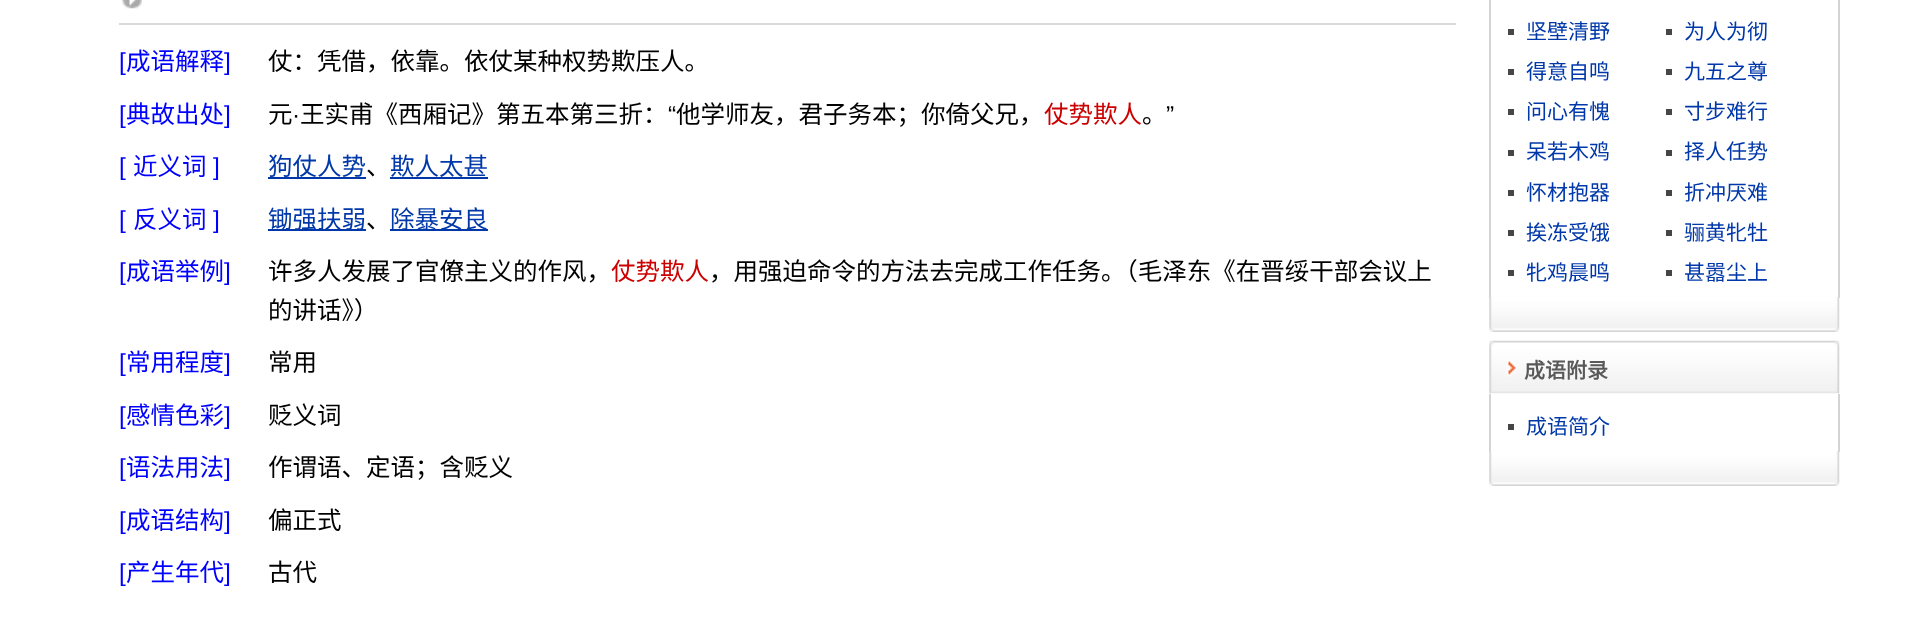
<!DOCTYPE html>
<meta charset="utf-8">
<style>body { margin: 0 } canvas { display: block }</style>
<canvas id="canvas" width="1923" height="617"></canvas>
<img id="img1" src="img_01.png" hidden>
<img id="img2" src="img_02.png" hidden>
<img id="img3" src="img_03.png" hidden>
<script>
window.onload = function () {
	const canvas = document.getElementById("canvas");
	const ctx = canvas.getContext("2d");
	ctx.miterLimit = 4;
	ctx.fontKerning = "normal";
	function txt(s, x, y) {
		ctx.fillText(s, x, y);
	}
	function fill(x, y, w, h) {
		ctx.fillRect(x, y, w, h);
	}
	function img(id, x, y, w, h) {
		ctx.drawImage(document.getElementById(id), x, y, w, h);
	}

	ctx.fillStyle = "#FFFFFF";
	fill(0, 0, 1923, 617);
	img("img1", 122, 0, 20, 9);
	ctx.fillStyle = "#D9D9D9";
	fill(119, 23, 1337, 2);
	ctx.fillStyle = "#0038A9";
	fill(268, 177, 98, 2);
	fill(390, 177, 98, 2);
	fill(268, 229, 98, 2);
	fill(390, 229, 98, 2);
	ctx.fillStyle = "#D4D4D4";
	fill(1838, 0, 2, 298);
	fill(1489, 0, 2, 298);
	ctx.fillStyle = "#464646";
	fill(1508, 29, 6, 6);
	fill(1666, 29, 6, 6);
	fill(1508, 69, 6, 6);
	fill(1666, 69, 6, 6);
	fill(1508, 109, 6, 6);
	fill(1666, 109, 6, 6);
	fill(1508, 150, 6, 6);
	fill(1666, 150, 6, 6);
	fill(1508, 190, 6, 6);
	fill(1666, 190, 6, 6);
	fill(1508, 230, 6, 6);
	fill(1666, 230, 6, 6);
	fill(1508, 270, 6, 6);
	fill(1666, 270, 6, 6);
	img("img2", 1489, 297, 351, 35);
	img("img3", 1489, 340, 351, 54);
	ctx.fillStyle = "#D4D4D4";
	fill(1838, 394, 2, 58);
	fill(1489, 394, 2, 58);
	ctx.fillStyle = "#464646";
	fill(1508, 424, 6, 6);
	img("img2", 1489, 451, 351, 35);
	ctx.font = "24.5px Liberation Sans";
	ctx.fillStyle = "#0000FF";
	txt("[", 119, 70);
	ctx.font = "24.5px Noto Sans CJK SC";
	txt("成语解释", 126, 70);
	ctx.font = "24.5px Liberation Sans";
	txt("]", 224, 70);
	ctx.font = "24.5px Noto Sans CJK SC";
	ctx.fillStyle = "#000000";
	txt("仗：凭借，依靠。依仗某种权势欺压人。", 268, 70);
	ctx.font = "24.5px Liberation Sans";
	ctx.fillStyle = "#0000FF";
	txt("[", 119, 123);
	ctx.font = "24.5px Noto Sans CJK SC";
	txt("典故出处", 126, 123);
	ctx.font = "24.5px Liberation Sans";
	txt("]", 224, 123);
	ctx.font = "24.5px Noto Sans CJK SC";
	ctx.fillStyle = "#000000";
	txt("元", 268, 123);
	txt("王实甫《西厢记》第五本第三折：", 300, 123);
	ctx.font = "24.5px Liberation Sans";
	txt("“", 668, 123);
	ctx.font = "24.5px Noto Sans CJK SC";
	txt("他学师友，君子务本；你倚父兄，", 676, 123);
	ctx.fillStyle = "#CC0000";
	txt("仗势欺人", 1044, 123);
	ctx.font = "24.5px Liberation Sans";
	ctx.fillStyle = "#000000";
	txt("”", 1166, 123);
	txt("·", 292, 123);
	ctx.font = "24.5px Noto Sans CJK SC";
	txt("。", 1142, 123);
	ctx.font = "24.5px Liberation Sans";
	ctx.fillStyle = "#0000FF";
	txt("[", 119, 175);
	ctx.font = "24.5px Noto Sans CJK SC";
	txt("近义词", 133, 175);
	ctx.font = "24.5px Liberation Sans";
	txt("]", 213, 175);
	ctx.font = "24.5px Noto Sans CJK SC";
	ctx.fillStyle = "#0038A9";
	txt("狗仗人势", 268, 175);
	ctx.fillStyle = "#000000";
	txt("、", 366, 175);
	ctx.fillStyle = "#0038A9";
	txt("欺人太甚", 390, 175);
	ctx.font = "24.5px Liberation Sans";
	ctx.fillStyle = "#0000FF";
	txt("[", 119, 228);
	ctx.font = "24.5px Noto Sans CJK SC";
	txt("反义词", 133, 228);
	ctx.font = "24.5px Liberation Sans";
	txt("]", 213, 228);
	ctx.font = "24.5px Noto Sans CJK SC";
	ctx.fillStyle = "#0038A9";
	txt("锄强扶弱", 268, 228);
	ctx.fillStyle = "#000000";
	txt("、", 366, 228);
	ctx.fillStyle = "#0038A9";
	txt("除暴安良", 390, 228);
	ctx.font = "24.5px Liberation Sans";
	ctx.fillStyle = "#0000FF";
	txt("[", 119, 280);
	ctx.font = "24.5px Noto Sans CJK SC";
	txt("成语举例", 126, 280);
	ctx.font = "24.5px Liberation Sans";
	txt("]", 224, 280);
	ctx.font = "24.5px Noto Sans CJK SC";
	ctx.fillStyle = "#000000";
	txt("许多人发展了官僚主义的作风，", 268, 280);
	ctx.fillStyle = "#CC0000";
	txt("仗势欺人", 611, 280);
	ctx.fillStyle = "#000000";
	txt("，用强迫命令的方法去完成工作任务。（毛泽东《在晋绥干部会议上", 709, 280);
	txt("的讲话》）", 268, 319);
	ctx.font = "24.5px Liberation Sans";
	ctx.fillStyle = "#0000FF";
	txt("[", 119, 371);
	ctx.font = "24.5px Noto Sans CJK SC";
	txt("常用程度", 126, 371);
	ctx.font = "24.5px Liberation Sans";
	txt("]", 224, 371);
	ctx.font = "24.5px Noto Sans CJK SC";
	ctx.fillStyle = "#000000";
	txt("常用", 268, 371);
	ctx.font = "24.5px Liberation Sans";
	ctx.fillStyle = "#0000FF";
	txt("[", 119, 424);
	ctx.font = "24.5px Noto Sans CJK SC";
	txt("感情色彩", 126, 424);
	ctx.font = "24.5px Liberation Sans";
	txt("]", 224, 424);
	ctx.font = "24.5px Noto Sans CJK SC";
	ctx.fillStyle = "#000000";
	txt("贬义词", 268, 424);
	ctx.font = "24.5px Liberation Sans";
	ctx.fillStyle = "#0000FF";
	txt("[", 119, 476);
	ctx.font = "24.5px Noto Sans CJK SC";
	txt("语法用法", 126, 476);
	ctx.font = "24.5px Liberation Sans";
	txt("]", 224, 476);
	ctx.font = "24.5px Noto Sans CJK SC";
	ctx.fillStyle = "#000000";
	txt("作谓语、定语；含贬义", 268, 476);
	ctx.font = "24.5px Liberation Sans";
	ctx.fillStyle = "#0000FF";
	txt("[", 119, 529);
	ctx.font = "24.5px Noto Sans CJK SC";
	txt("成语结构", 126, 529);
	ctx.font = "24.5px Liberation Sans";
	txt("]", 224, 529);
	ctx.font = "24.5px Noto Sans CJK SC";
	ctx.fillStyle = "#000000";
	txt("偏正式", 268, 529);
	ctx.font = "24.5px Liberation Sans";
	ctx.fillStyle = "#0000FF";
	txt("[", 119, 581);
	ctx.font = "24.5px Noto Sans CJK SC";
	txt("产生年代", 126, 581);
	ctx.font = "24.5px Liberation Sans";
	txt("]", 224, 581);
	ctx.font = "24.5px Noto Sans CJK SC";
	ctx.fillStyle = "#000000";
	txt("古代", 268, 581);
	ctx.font = "21px Noto Sans CJK SC";
	ctx.fillStyle = "#0038A9";
	txt("坚壁清野", 1526, 39);
	txt("为人为彻", 1684, 39);
	txt("得意自鸣", 1526, 79);
	txt("九五之尊", 1684, 79);
	txt("问心有愧", 1526, 119);
	txt("寸步难行", 1684, 119);
	txt("呆若木鸡", 1526, 159);
	txt("择人任势", 1684, 159);
	txt("怀材抱器", 1526, 200);
	txt("折冲厌难", 1684, 200);
	txt("挨冻受饿", 1526, 240);
	txt("骊黄牝牡", 1684, 240);
	txt("牝鸡晨鸣", 1526, 280);
	txt("甚嚣尘上", 1684, 280);
	ctx.font = "bold 21px Noto Sans CJK SC";
	ctx.fillStyle = "#595959";
	txt("成语附录", 1524, 378);
	ctx.font = "21px Noto Sans CJK SC";
	ctx.fillStyle = "#0038A9";
	txt("成语简介", 1526, 434);
};
</script>
